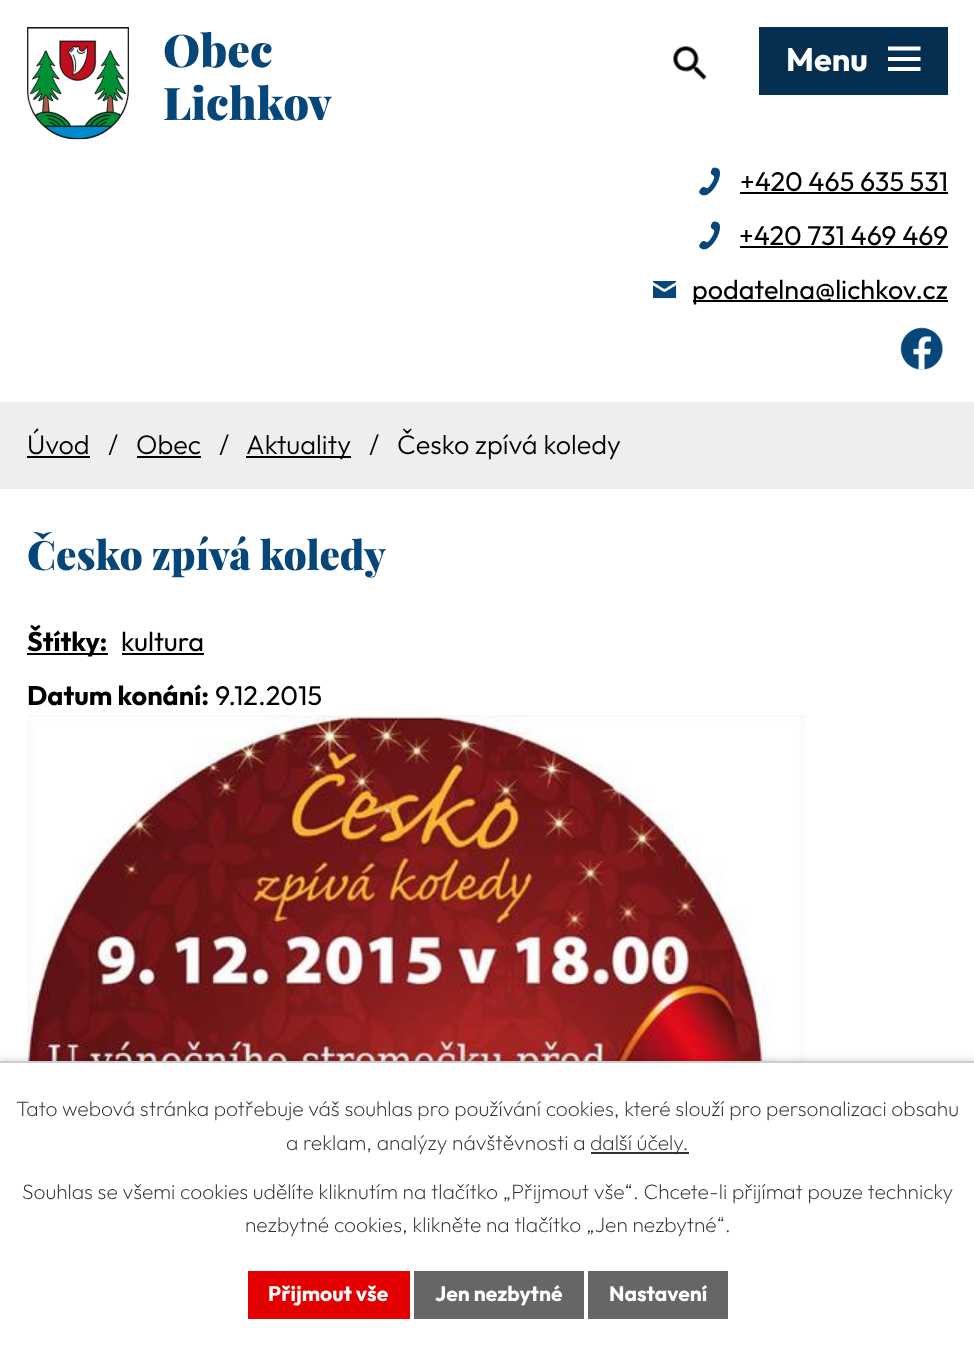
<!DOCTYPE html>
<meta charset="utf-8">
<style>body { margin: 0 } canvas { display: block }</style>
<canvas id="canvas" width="974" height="1346"></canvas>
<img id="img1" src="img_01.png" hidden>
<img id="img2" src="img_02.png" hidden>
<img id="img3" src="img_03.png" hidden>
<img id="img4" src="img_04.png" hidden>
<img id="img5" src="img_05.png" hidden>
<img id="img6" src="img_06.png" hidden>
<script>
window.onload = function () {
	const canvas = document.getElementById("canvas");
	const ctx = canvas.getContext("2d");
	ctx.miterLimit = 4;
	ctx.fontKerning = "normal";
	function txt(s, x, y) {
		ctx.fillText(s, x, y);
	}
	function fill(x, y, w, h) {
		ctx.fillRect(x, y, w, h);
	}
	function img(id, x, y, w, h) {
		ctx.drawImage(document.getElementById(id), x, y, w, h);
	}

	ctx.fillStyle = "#FFFFFF";
	fill(0, 0, 974, 1346);
	img("img1", 27, 27, 102, 113);
	img("img2", 673, 46, 34, 34);
	img("img3", 699, 167, 21, 29);
	ctx.fillStyle = "#000000";
	fill(740, 192, 208, 2);
	img("img3", 699, 221, 21, 29);
	fill(740, 246, 208, 2);
	img("img4", 653, 281, 24, 18);
	fill(693, 300, 255, 2);
	img("img5", 900, 327, 43, 43);
	ctx.fillStyle = "#052F51";
	fill(759, 27, 189, 68);
	ctx.fillStyle = "#FFFFFF";
	ctx.beginPath();
	ctx.moveTo(888, 71);
	ctx.lineTo(888, 67);
	ctx.lineTo(920.5, 67);
	ctx.lineTo(920.5, 71);
	ctx.closePath();
	ctx.moveTo(888, 46.5);
	ctx.lineTo(920.5, 46.5);
	ctx.lineTo(920.5, 50.5);
	ctx.lineTo(888, 50.5);
	ctx.closePath();
	ctx.moveTo(888, 61);
	ctx.lineTo(888, 57);
	ctx.lineTo(920.5, 57);
	ctx.lineTo(920.5, 61);
	ctx.closePath();
	ctx.fill();
	ctx.fillStyle = "#EEEEEE";
	fill(0, 402, 974, 87);
	ctx.fillStyle = "#000000";
	fill(27, 456, 63, 2);
	fill(137, 456, 64, 2);
	fill(246, 456, 105, 2);
	fill(27, 653, 81, 2);
	fill(122, 653, 82, 2);
	img("img6", 27, 715, 780, 346);
	ctx.fillStyle = "rgba(0, 0, 0, 0.2)";
	ctx.filter = "blur(4px)";
	ctx.beginPath();
	ctx.rect(0, 1061, 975, 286);
	ctx.fill();
	ctx.filter = "none";
	ctx.fillStyle = "#FFFFFF";
	fill(0, 1063, 974, 283);
	ctx.fillStyle = "#CCCCCC";
	fill(0, 1061, 974, 2);
	ctx.fillStyle = "#333333";
	fill(591, 1152, 98, 2);
	ctx.fillStyle = "#E30000";
	fill(248, 1271, 162, 48);
	ctx.fillStyle = "#666666";
	fill(414, 1271, 170, 48);
	fill(588, 1271, 140, 48);
	ctx.font = "900 45px Playfair Display";
	ctx.fillStyle = "#074679";
	txt("Obec", 163, 67);
	txt("Lichkov", 163, 120);
	ctx.font = "27px Outfit";
	ctx.fillStyle = "#000000";
	txt("+420 465 635 531", 740, 191);
	txt("+420 731 469 469", 739, 245);
	txt("podatelna@lichkov.cz", 692, 299);
	ctx.font = "bold 32.5px Outfit";
	ctx.fillStyle = "#FFFFFF";
	txt("Menu", 786, 71);
	ctx.font = "300 27px Outfit";
	ctx.fillStyle = "#000000";
	txt("Úvod", 27, 454);
	txt("/", 108, 454);
	txt("Obec", 136, 454);
	txt("/", 219, 454);
	txt("Aktuality", 246, 454);
	txt("/", 369, 454);
	txt("Česko zpívá koledy", 397, 454);
	ctx.font = "900 40.5px Playfair Display";
	ctx.fillStyle = "#074679";
	txt("Česko zpívá koledy", 27, 570);
	ctx.font = "bold 27px Outfit";
	ctx.fillStyle = "#000000";
	txt("Štítky:", 27, 651);
	ctx.font = "27px Outfit";
	txt("kultura", 121, 651);
	ctx.font = "bold 27px Outfit";
	txt("Datum konání:", 27, 705);
	ctx.font = "27px Outfit";
	txt("9.12.2015", 215, 705);
	ctx.font = "200 21px Outfit";
	ctx.fillStyle = "#333333";
	txt("Tato webová stránka potřebuje váš souhlas pro používání cookies, které slouží pro personalizaci obsahu", 16, 1116);
	txt("a reklam, analýzy návštěvnosti a", 286, 1150);
	txt("další účely.", 590, 1150);
	txt("Souhlas se všemi cookies udělíte kliknutím na tlačítko „Přijmout vše“. Chcete-li přijímat pouze technicky", 22, 1199);
	txt("nezbytné cookies, klikněte na tlačítko „Jen nezbytné“.", 245, 1232);
	ctx.font = "bold 21px Outfit";
	ctx.fillStyle = "#FFFFFF";
	txt("Přijmout vše", 268, 1301);
	txt("Jen nezbytné", 435, 1301);
	txt("Nastavení", 609, 1301);
};
</script>
